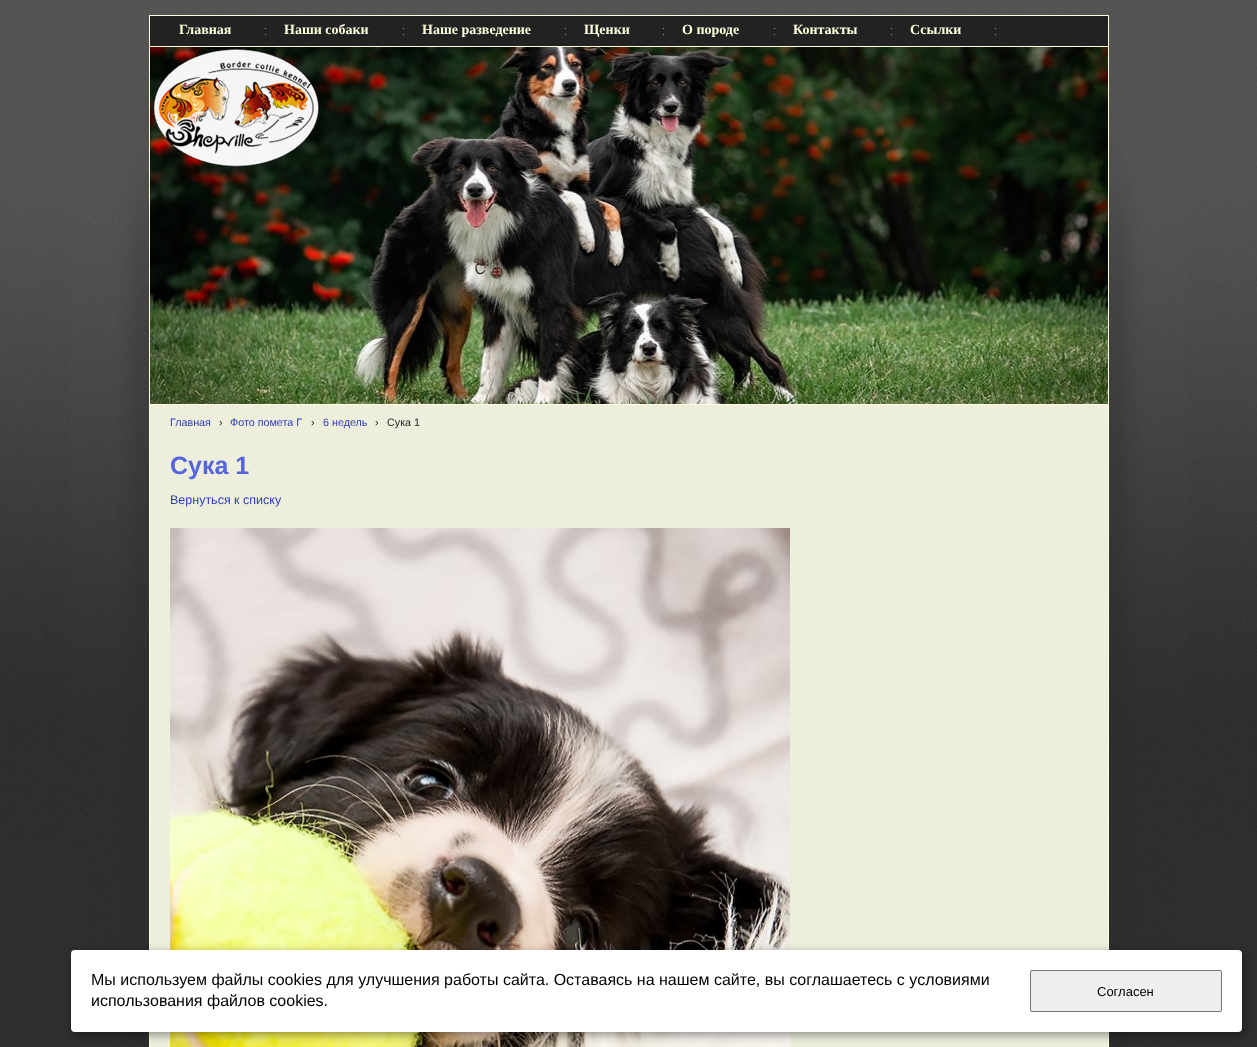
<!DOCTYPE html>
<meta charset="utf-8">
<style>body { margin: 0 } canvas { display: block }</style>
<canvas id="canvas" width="1257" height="1047"></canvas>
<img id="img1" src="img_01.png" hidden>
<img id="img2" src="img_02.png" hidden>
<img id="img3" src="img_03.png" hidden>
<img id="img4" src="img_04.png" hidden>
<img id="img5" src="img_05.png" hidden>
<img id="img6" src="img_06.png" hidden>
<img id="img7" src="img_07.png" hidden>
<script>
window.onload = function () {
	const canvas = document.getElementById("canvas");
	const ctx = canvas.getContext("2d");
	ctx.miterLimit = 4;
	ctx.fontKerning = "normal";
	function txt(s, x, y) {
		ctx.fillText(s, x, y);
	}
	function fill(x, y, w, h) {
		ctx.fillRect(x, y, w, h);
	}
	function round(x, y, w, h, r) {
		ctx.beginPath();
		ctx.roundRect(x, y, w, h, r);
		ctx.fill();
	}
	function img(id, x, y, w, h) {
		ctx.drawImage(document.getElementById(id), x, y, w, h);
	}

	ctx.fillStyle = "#2F2F2F";
	fill(0, 0, 1257, 1047);
	img("img1", 82, 858, 1095, 189);
	img("img2", 0, 0, 1257, 843);
	img("img3", 70, 15, 1117, 843);
	ctx.fillStyle = "#FFFFDD";
	fill(149, 15, 960, 1);
	fill(1108, 15, 1, 31);
	fill(149, 15, 1, 31);
	ctx.fillStyle = "#222222";
	fill(150, 16, 958, 30);
	img("img4", 265, 28, 1, 7);
	img("img4", 403, 28, 1, 7);
	img("img4", 565, 28, 1, 7);
	img("img4", 663, 28, 1, 7);
	img("img4", 774, 28, 1, 7);
	img("img4", 891, 28, 1, 7);
	img("img4", 995, 28, 1, 7);
	img("img5", 150, 47, 958, 357);
	ctx.strokeStyle = "#FFFFDD";
	ctx.strokeRect(149.5, 46.5, 959, 358);
	img("img6", 153, 49, 166, 118);
	ctx.fillStyle = "#EEEEDD";
	fill(150, 405, 958, 642);
	ctx.fillStyle = "#FFFFDD";
	fill(1108, 405, 1, 642);
	fill(149, 405, 1, 642);
	img("img7", 170, 528, 620, 519);
	ctx.fillStyle = "rgba(0, 0, 0, 0.4)";
	ctx.filter = "blur(5px)";
	ctx.beginPath();
	ctx.roundRect(73, 953, 1171, 82, 4);
	ctx.fill();
	ctx.filter = "none";
	ctx.fillStyle = "#FFFFFF";
	round(71, 950, 1171, 82, 4);
	ctx.fillStyle = "#EFEFEF";
	ctx.beginPath();
	ctx.roundRect(1030.5, 970.5, 191, 41, 1.5);
	ctx.fill();
	ctx.strokeStyle = "#767676";
	ctx.stroke();
	ctx.font = "bold 14px Liberation Serif";
	ctx.fillStyle = "#FFFFDD";
	txt("Главная", 179, 34);
	txt("Наши собаки", 284, 34);
	txt("Наше разведение", 422, 34);
	txt("Щенки", 584, 34);
	txt("О породе", 682, 34);
	txt("Контакты", 793, 34);
	txt("Ссылки", 910, 34);
	ctx.font = "10.75px Liberation Sans";
	ctx.fillStyle = "#2C3CBA";
	txt("Главная", 170, 426);
	ctx.fillStyle = "#1F1F1F";
	txt("›", 219, 426);
	ctx.fillStyle = "#2C3CBA";
	txt("Фото помета Г", 230, 426);
	ctx.fillStyle = "#1F1F1F";
	txt("›", 311, 426);
	ctx.fillStyle = "#2C3CBA";
	txt("6 недель", 323, 426);
	ctx.fillStyle = "#1F1F1F";
	txt("›", 375, 426);
	txt("Сука 1", 387, 426);
	ctx.font = "bold 25px Liberation Sans";
	ctx.fillStyle = "#5566DD";
	txt("Сука 1", 170, 474);
	ctx.font = "12.5px Liberation Sans";
	ctx.fillStyle = "#2C3CBA";
	txt("Вернуться к списку", 170, 504);
	ctx.font = "16px Liberation Sans";
	ctx.fillStyle = "#000000";
	txt("Мы используем файлы cookies для улучшения работы сайта. Оставаясь на нашем сайте, вы соглашаетесь с условиями", 91, 985);
	txt("использования файлов cookies.", 91, 1006);
	ctx.font = "13px Liberation Sans";
	txt("Согласен", 1097, 996);
};
</script>
